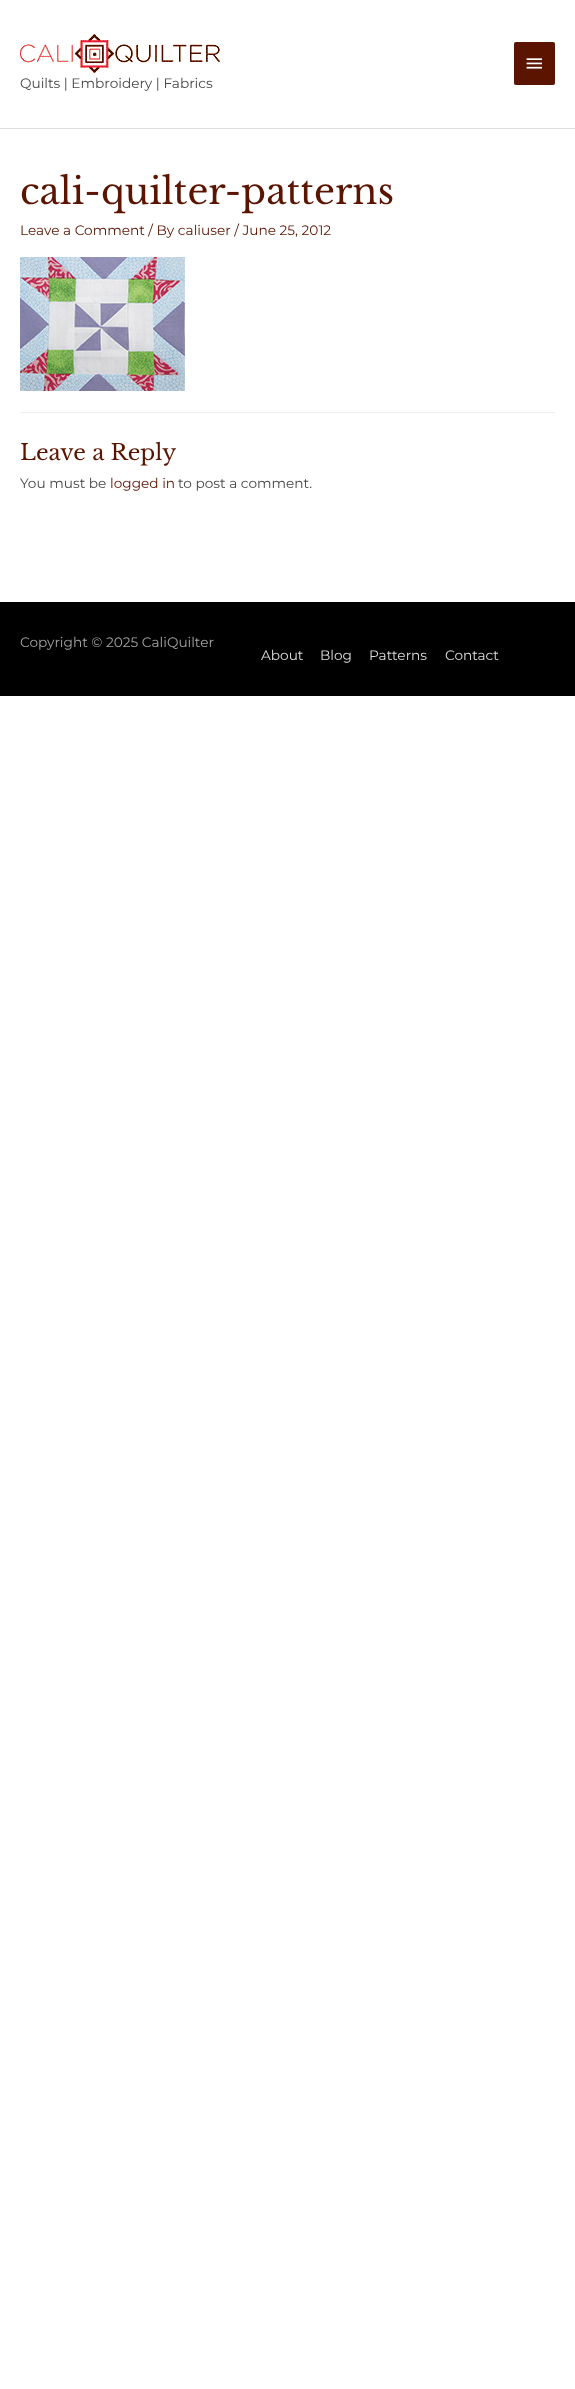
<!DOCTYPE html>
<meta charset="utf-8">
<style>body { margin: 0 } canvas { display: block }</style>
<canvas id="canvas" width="575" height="2389"></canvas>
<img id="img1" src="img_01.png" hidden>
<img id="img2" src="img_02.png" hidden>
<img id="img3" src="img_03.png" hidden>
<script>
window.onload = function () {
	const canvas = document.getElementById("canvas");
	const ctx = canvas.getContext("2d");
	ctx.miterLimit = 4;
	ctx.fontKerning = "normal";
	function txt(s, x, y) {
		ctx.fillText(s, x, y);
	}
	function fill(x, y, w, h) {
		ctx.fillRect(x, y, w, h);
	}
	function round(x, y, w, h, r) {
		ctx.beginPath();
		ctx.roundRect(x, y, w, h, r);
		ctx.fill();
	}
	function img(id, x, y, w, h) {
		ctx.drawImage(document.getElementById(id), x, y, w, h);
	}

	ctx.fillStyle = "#FFFFFF";
	fill(0, 0, 575, 2389);
	ctx.fillStyle = "#DDDDDD";
	fill(0, 128, 575, 1);
	img("img1", 20, 34, 200, 39);
	ctx.fillStyle = "#5A1400";
	round(514, 42, 41, 43, 2);
	img("img2", 526, 58, 16, 11);
	img("img3", 20, 257, 165, 134);
	ctx.fillStyle = "#EEEEEE";
	fill(20, 412, 535, 1);
	ctx.fillStyle = "#000000";
	fill(0, 602, 575, 94);
	ctx.font = "13.7px Montserrat";
	ctx.fillStyle = "#474747";
	txt("Quilts | Embroidery | Fabrics", 20, 88);
	ctx.font = "36.5px Libre Baskerville";
	ctx.fillStyle = "#5A1400";
	txt("cali-quilter-patterns", 20, 204);
	ctx.font = "13.7px Montserrat";
	txt("Leave a Comment / By caliuser / June 25, 2012", 20, 235);
	ctx.font = "22px Libre Baskerville";
	txt("Leave a Reply", 20, 460);
	ctx.font = "13.7px Montserrat";
	ctx.fillStyle = "#474747";
	txt("You must be", 20, 488);
	ctx.fillStyle = "#5A1400";
	txt("logged in", 110, 488);
	ctx.fillStyle = "#474747";
	txt("to post a comment.", 178, 488);
	ctx.fillStyle = "#A3A3A3";
	txt("Copyright © 2025 CaliQuilter", 20, 647);
	ctx.fillStyle = "#DDDDDD";
	txt("About", 261, 660);
	txt("Blog", 320, 660);
	txt("Patterns", 369, 660);
	txt("Contact", 445, 660);
};
</script>
